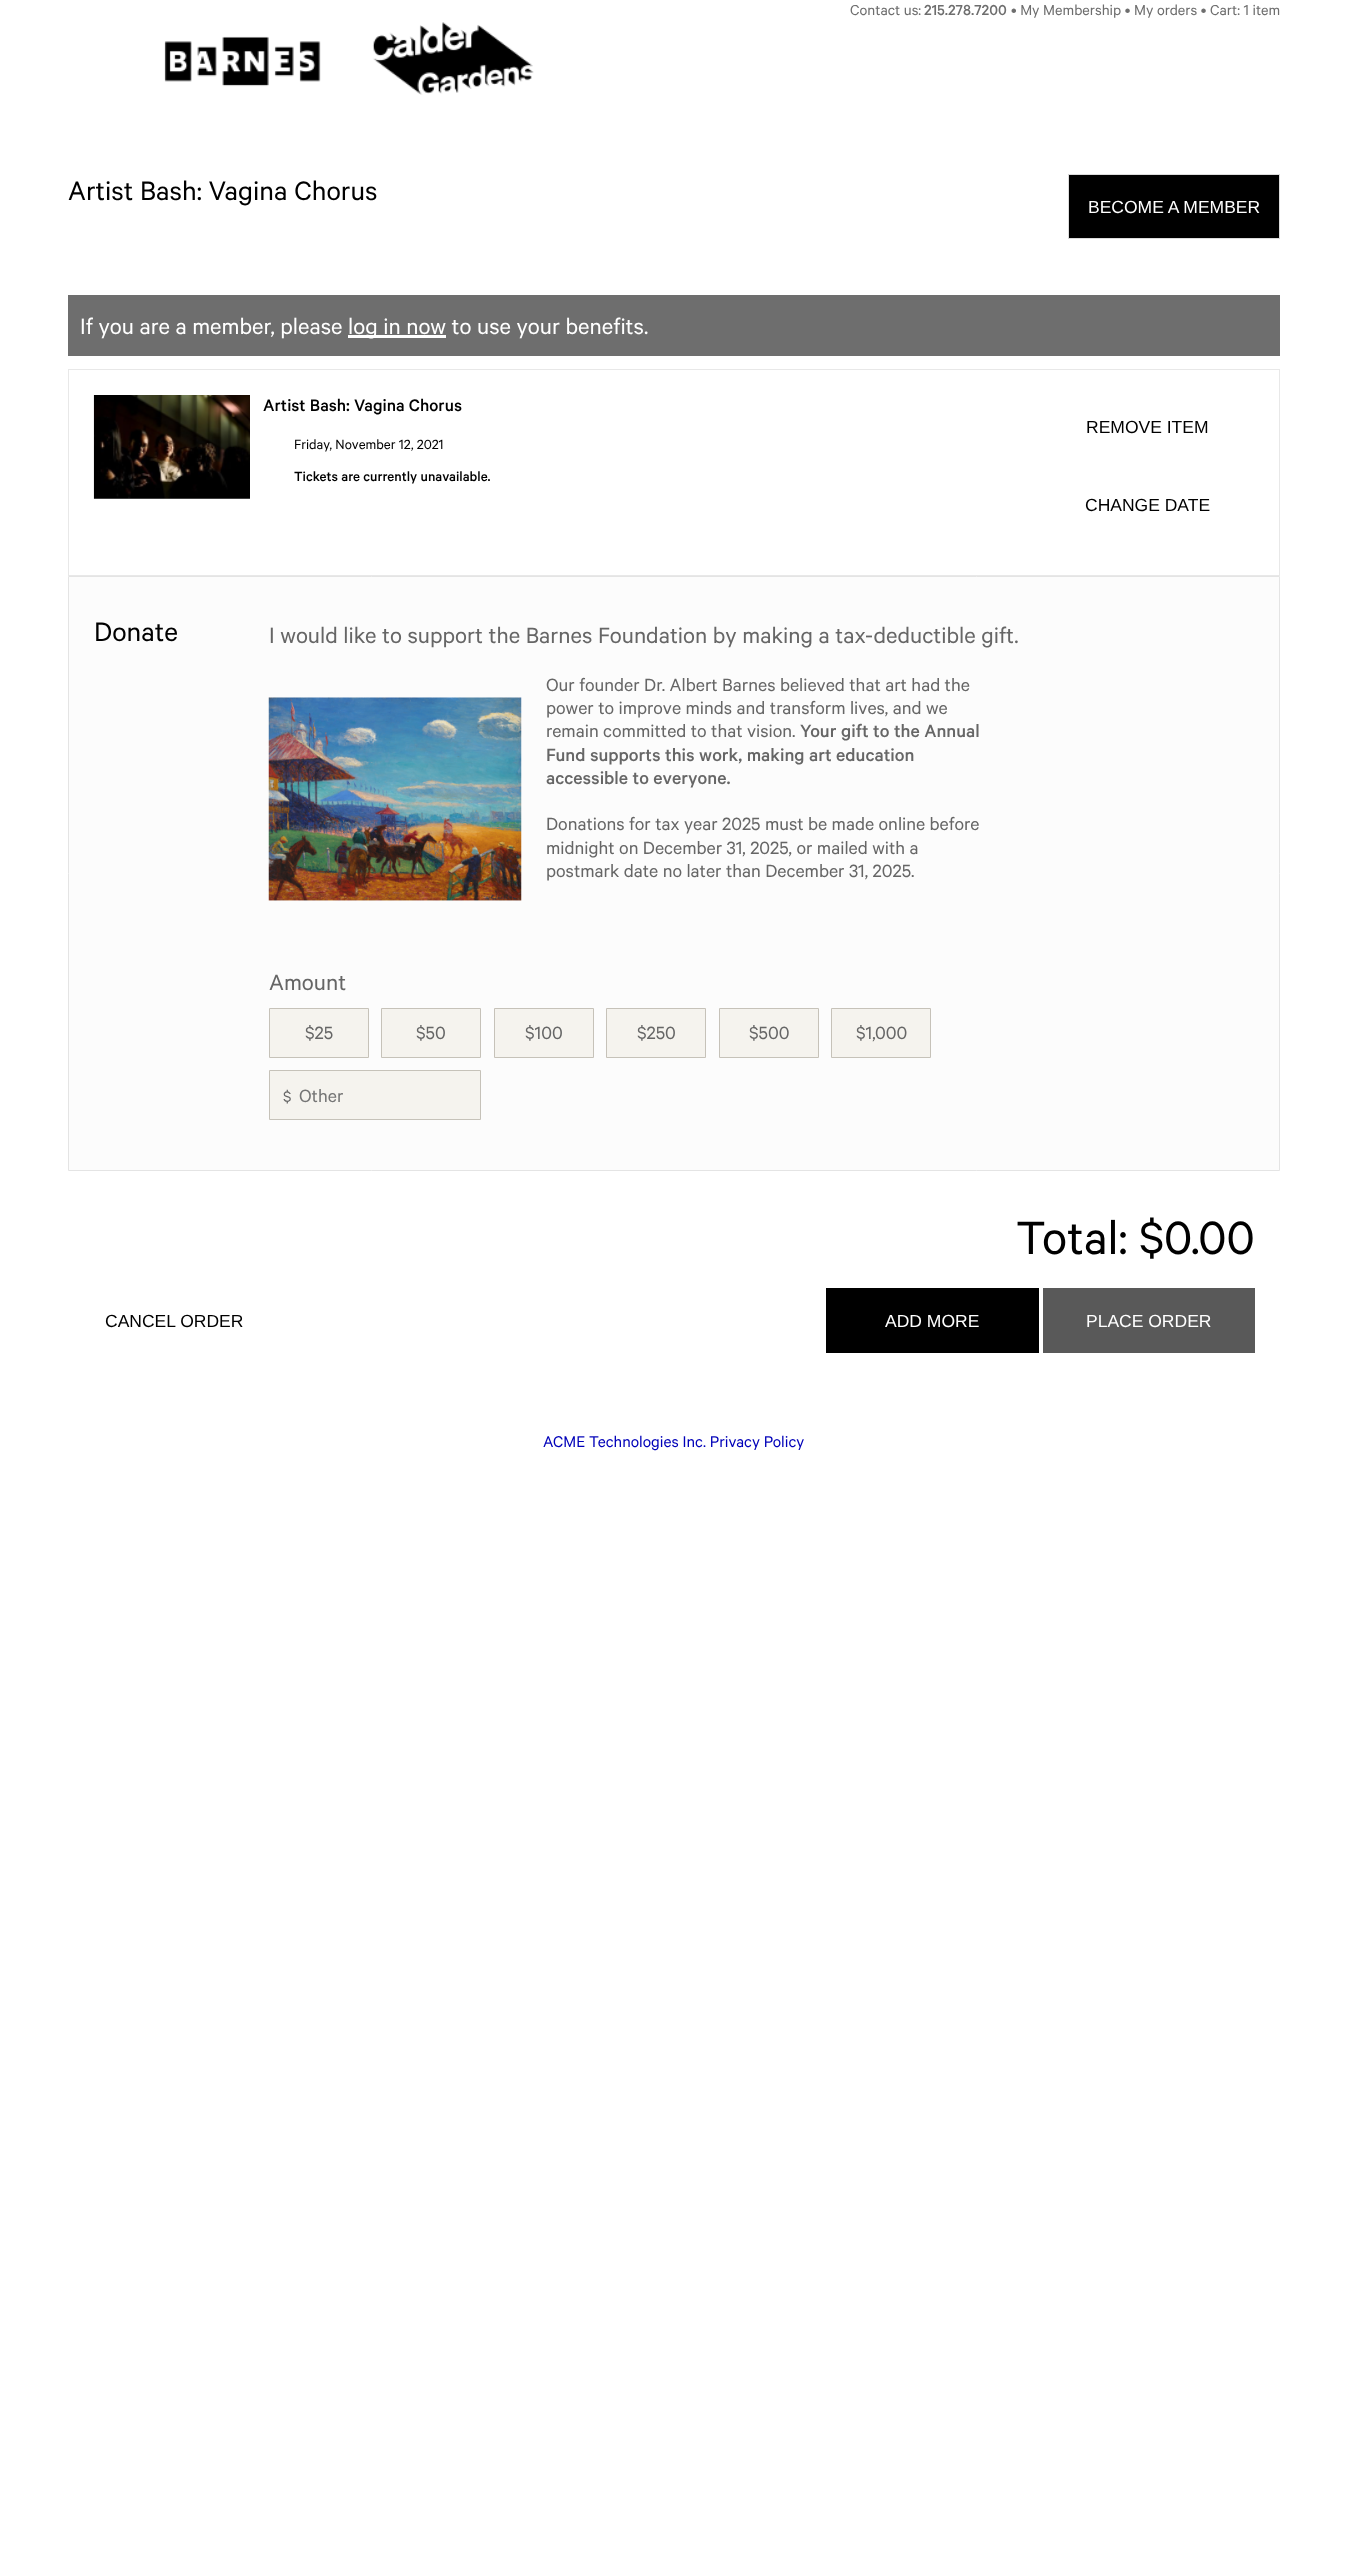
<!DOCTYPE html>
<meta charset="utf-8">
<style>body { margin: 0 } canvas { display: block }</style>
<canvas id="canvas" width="1347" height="2556"></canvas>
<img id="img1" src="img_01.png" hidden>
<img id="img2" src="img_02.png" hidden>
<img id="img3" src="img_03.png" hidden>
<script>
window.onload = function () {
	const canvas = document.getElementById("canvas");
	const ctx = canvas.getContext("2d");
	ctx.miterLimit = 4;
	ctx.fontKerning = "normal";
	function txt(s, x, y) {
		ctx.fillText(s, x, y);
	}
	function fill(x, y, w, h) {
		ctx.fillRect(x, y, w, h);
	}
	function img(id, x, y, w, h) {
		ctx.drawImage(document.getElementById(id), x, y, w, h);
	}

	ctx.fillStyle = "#FFFFFF";
	fill(0, 0, 1347, 2556);
	img("img1", 164, 22, 370, 73);
	ctx.fillStyle = "#000000";
	ctx.beginPath();
	ctx.rect(1068.5, 174.5, 211, 64);
	ctx.fill();
	ctx.strokeStyle = "#DCDCDC";
	ctx.stroke();
	ctx.fillStyle = "#6E6E6E";
	fill(68, 295, 1212, 61);
	ctx.fillStyle = "#FFFFFF";
	fill(348, 335, 98, 3);
	ctx.strokeStyle = "#E8E8E8";
	ctx.strokeRect(68.5, 369.5, 1211, 206);
	img("img2", 93, 395, 157, 104);
	ctx.fillStyle = "#FCFCFC";
	ctx.beginPath();
	ctx.rect(68.5, 576.5, 1211, 594);
	ctx.fill();
	ctx.strokeStyle = "#E4E4E4";
	ctx.stroke();
	img("img3", 268, 697, 254, 204);
	ctx.fillStyle = "#F5F3EE";
	ctx.beginPath();
	ctx.rect(269.5, 1008.5, 99, 49);
	ctx.fill();
	ctx.strokeStyle = "#C6C2B9";
	ctx.stroke();
	ctx.beginPath();
	ctx.rect(381.5, 1008.5, 99, 49);
	ctx.fill();
	ctx.stroke();
	ctx.beginPath();
	ctx.rect(494.5, 1008.5, 99, 49);
	ctx.fill();
	ctx.stroke();
	ctx.beginPath();
	ctx.rect(606.5, 1008.5, 99, 49);
	ctx.fill();
	ctx.stroke();
	ctx.beginPath();
	ctx.rect(719.5, 1008.5, 99, 49);
	ctx.fill();
	ctx.stroke();
	ctx.beginPath();
	ctx.rect(831.5, 1008.5, 99, 49);
	ctx.fill();
	ctx.stroke();
	ctx.beginPath();
	ctx.rect(269.5, 1070.5, 211, 49);
	ctx.fill();
	ctx.stroke();
	ctx.fillStyle = "#000000";
	fill(826, 1288, 213, 65);
	ctx.fillStyle = "#595959";
	fill(1043, 1288, 212, 65);
	ctx.font = "16.25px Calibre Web";
	ctx.fillStyle = "#6E6E6E";
	txt("Contact us:", 850, 15);
	ctx.font = "500 16.25px Calibre Web";
	txt("215.278.7200", 924, 15);
	ctx.font = "16.25px Calibre Web";
	txt("• My Membership • My orders • Cart: 1 item", 1011, 15);
	ctx.font = "30px Calibre Web";
	ctx.fillStyle = "#000000";
	txt("Artist Bash: Vagina Chorus", 68, 200);
	ctx.font = "17.5px Liberation Sans";
	ctx.fillStyle = "#FFFFFF";
	txt("BECOME A MEMBER", 1088, 213);
	ctx.font = "25px Calibre Web";
	txt("If you are a member, please", 80, 334);
	txt("log in now to use your benefits.", 348, 334);
	ctx.font = "500 18.75px Calibre Web";
	ctx.fillStyle = "#000000";
	txt("Artist Bash: Vagina Chorus", 263, 411);
	ctx.font = "15px Calibre Web";
	txt("Friday, November 12, 2021", 294, 449);
	ctx.font = "500 15px Calibre Web";
	txt("Tickets are currently unavailable.", 294, 481);
	ctx.font = "17.5px Liberation Sans";
	txt("REMOVE ITEM", 1086, 433);
	txt("CHANGE DATE", 1085, 511);
	ctx.font = "30px Calibre Web";
	txt("Donate", 94, 641);
	ctx.font = "25px Calibre Web";
	ctx.fillStyle = "#666666";
	txt("I would like to support the Barnes Foundation by making a tax-deductible gift.", 269, 643);
	ctx.font = "20px Calibre Web";
	txt("Our founder Dr. Albert Barnes believed that art had the", 546, 691);
	txt("power to improve minds and transform lives, and we", 546, 714);
	txt("remain committed to that vision.", 546, 737);
	ctx.font = "500 20px Calibre Web";
	txt("Your gift to the Annual", 800, 737);
	txt("Fund supports this work, making art education", 546, 761);
	txt("accessible to everyone.", 546, 784);
	ctx.font = "20px Calibre Web";
	txt("Donations for tax year 2025 must be made online before", 546, 830);
	txt("midnight on December 31, 2025, or mailed with a", 546, 854);
	txt("postmark date no later than December 31, 2025.", 546, 877);
	ctx.font = "25px Calibre Web";
	txt("Amount", 269, 990);
	ctx.font = "20px Calibre Web";
	txt("$25", 305, 1039);
	txt("$50", 416, 1039);
	txt("$100", 525, 1039);
	txt("$250", 637, 1039);
	txt("$500", 749, 1039);
	txt("$1,000", 856, 1039);
	ctx.font = "17.5px Calibre Web";
	txt("$", 283, 1102);
	ctx.font = "20px Calibre Web";
	ctx.fillStyle = "#757575";
	txt("Other", 299, 1102);
	ctx.font = "52.5px Calibre Web";
	ctx.fillStyle = "#000000";
	txt("Total: $0.00", 1016, 1254);
	ctx.font = "17.5px Liberation Sans";
	txt("CANCEL ORDER", 105, 1327);
	ctx.fillStyle = "#FFFFFF";
	txt("ADD MORE", 885, 1327);
	txt("PLACE ORDER", 1086, 1327);
	ctx.font = "17.5px Calibre Web";
	ctx.fillStyle = "#0000B9";
	txt("ACME Technologies Inc. Privacy Policy", 543, 1447);
};
</script>
